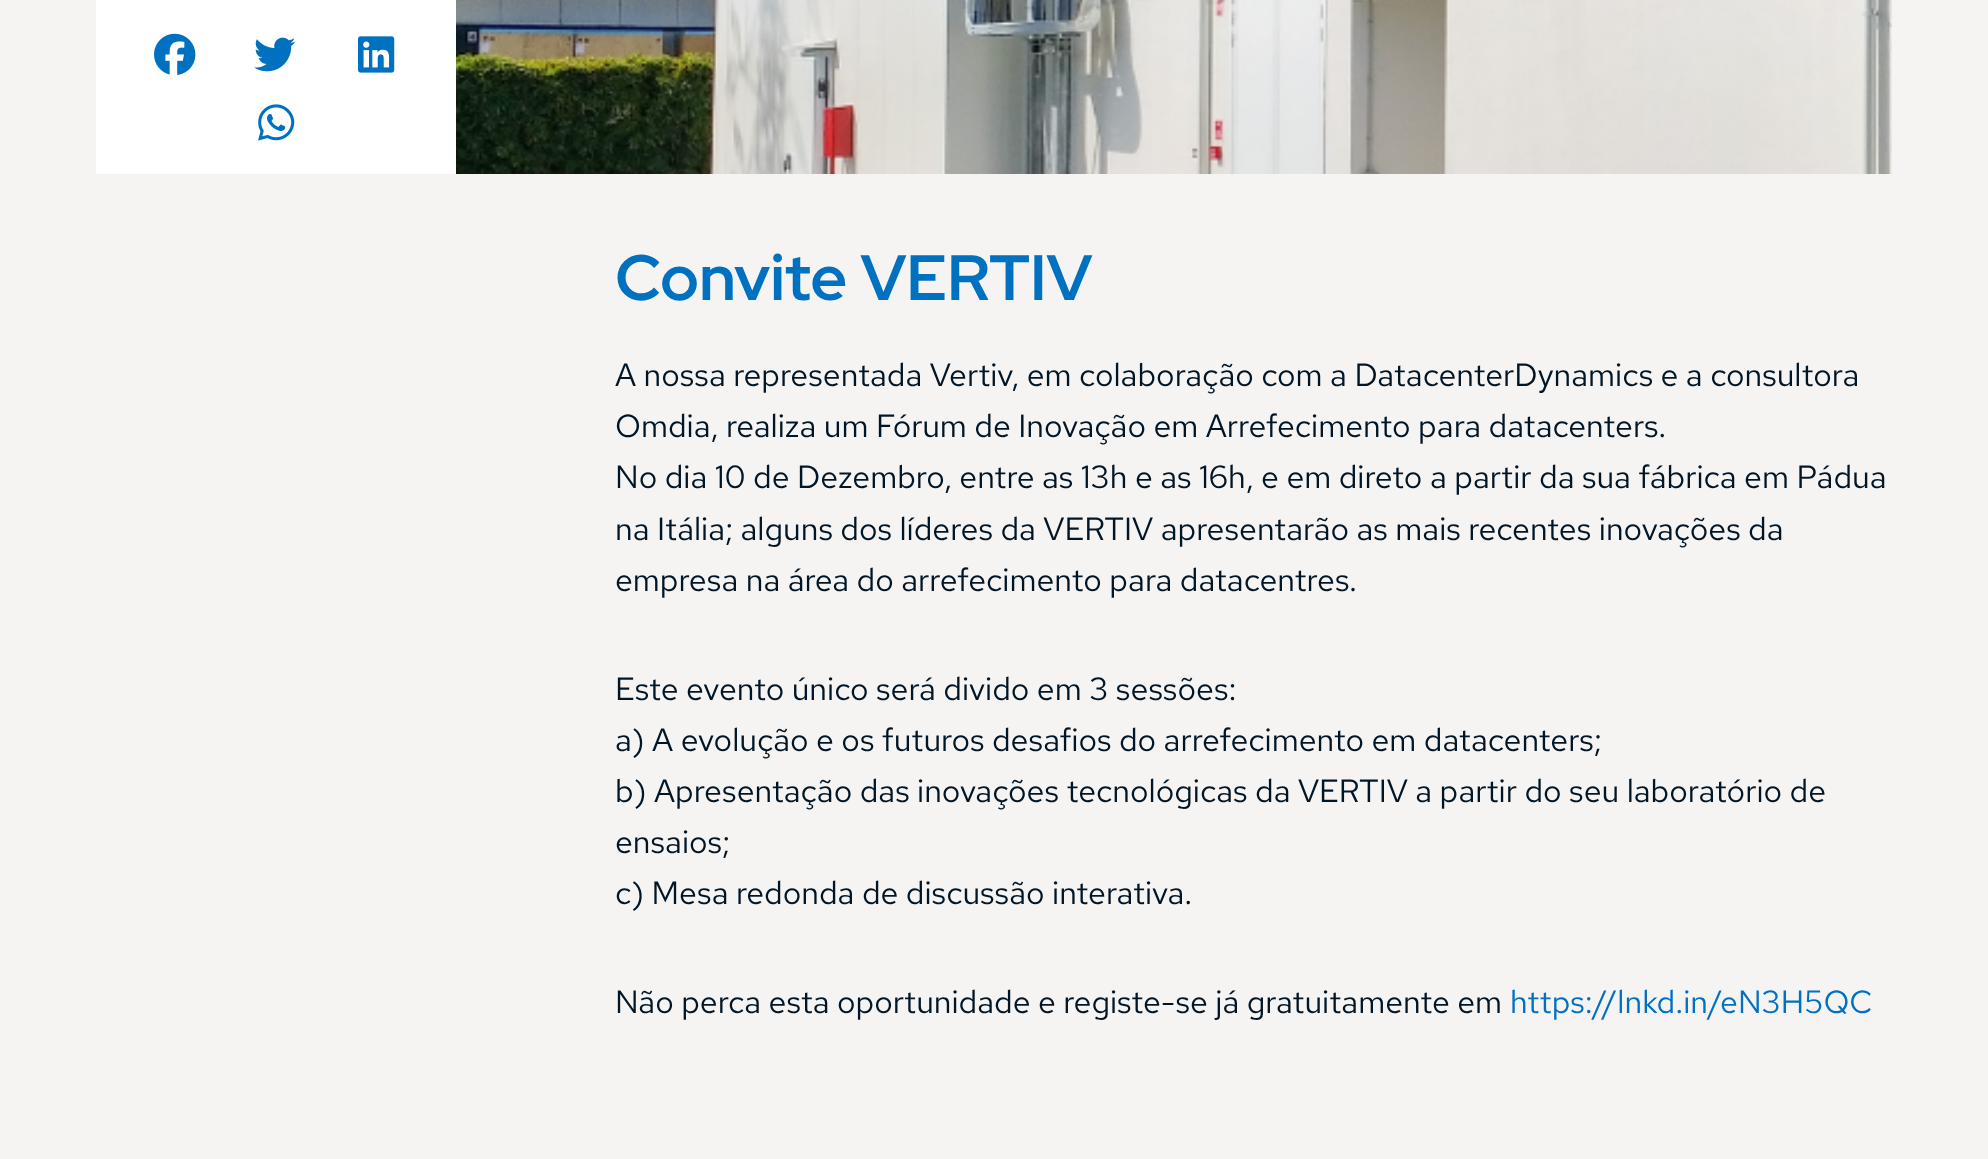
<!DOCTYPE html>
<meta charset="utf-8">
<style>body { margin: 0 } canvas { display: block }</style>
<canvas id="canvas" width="1988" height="1159"></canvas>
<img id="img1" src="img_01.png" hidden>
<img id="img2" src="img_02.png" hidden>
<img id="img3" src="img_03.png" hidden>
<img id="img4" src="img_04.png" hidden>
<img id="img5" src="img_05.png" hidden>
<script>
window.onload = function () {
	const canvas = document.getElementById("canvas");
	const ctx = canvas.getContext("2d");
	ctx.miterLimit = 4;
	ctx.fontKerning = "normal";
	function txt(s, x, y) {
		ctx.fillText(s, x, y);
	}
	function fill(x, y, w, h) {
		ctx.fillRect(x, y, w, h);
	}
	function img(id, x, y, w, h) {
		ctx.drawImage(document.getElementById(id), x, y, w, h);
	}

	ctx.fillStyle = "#F5F4F3";
	fill(0, 0, 1988, 1159);
	ctx.fillStyle = "#FFFFFF";
	fill(96, 0, 360, 174);
	img("img1", 154, 33, 42, 42);
	img("img2", 254, 37, 42, 35);
	img("img3", 358, 36, 37, 37);
	img("img4", 258, 104, 37, 37);
	img("img5", 456, 0, 1436, 174);
	ctx.font = "bold 64px Red Hat Display";
	ctx.fillStyle = "#0071C0";
	txt("Convite VERTIV", 615, 300);
	ctx.font = "32px Red Hat Text";
	ctx.fillStyle = "#001626";
	txt("A nossa representada Vertiv, em colaboração com a DatacenterDynamics e a consultora", 615, 386);
	txt("Omdia, realiza um Fórum de Inovação em Arrefecimento para datacenters.", 615, 437);
	txt("No dia 10 de Dezembro, entre as 13h e as 16h, e em direto a partir da sua fábrica em Pádua", 615, 488);
	txt("na Itália; alguns dos líderes da VERTIV apresentarão as mais recentes inovações da", 615, 540);
	txt("empresa na área do arrefecimento para datacentres.", 615, 591);
	txt("Este evento único será divido em 3 sessões:", 615, 700);
	txt("a) A evolução e os futuros desafios do arrefecimento em datacenters;", 615, 751);
	txt("b) Apresentação das inovações tecnológicas da VERTIV a partir do seu laboratório de", 615, 802);
	txt("ensaios;", 615, 853);
	txt("c) Mesa redonda de discussão interativa.", 615, 904);
	txt("Não perca esta oportunidade e registe-se já gratuitamente em", 615, 1013);
	ctx.fillStyle = "#0071C0";
	txt("https://lnkd.in/eN3H5QC", 1510, 1013);
};
</script>
